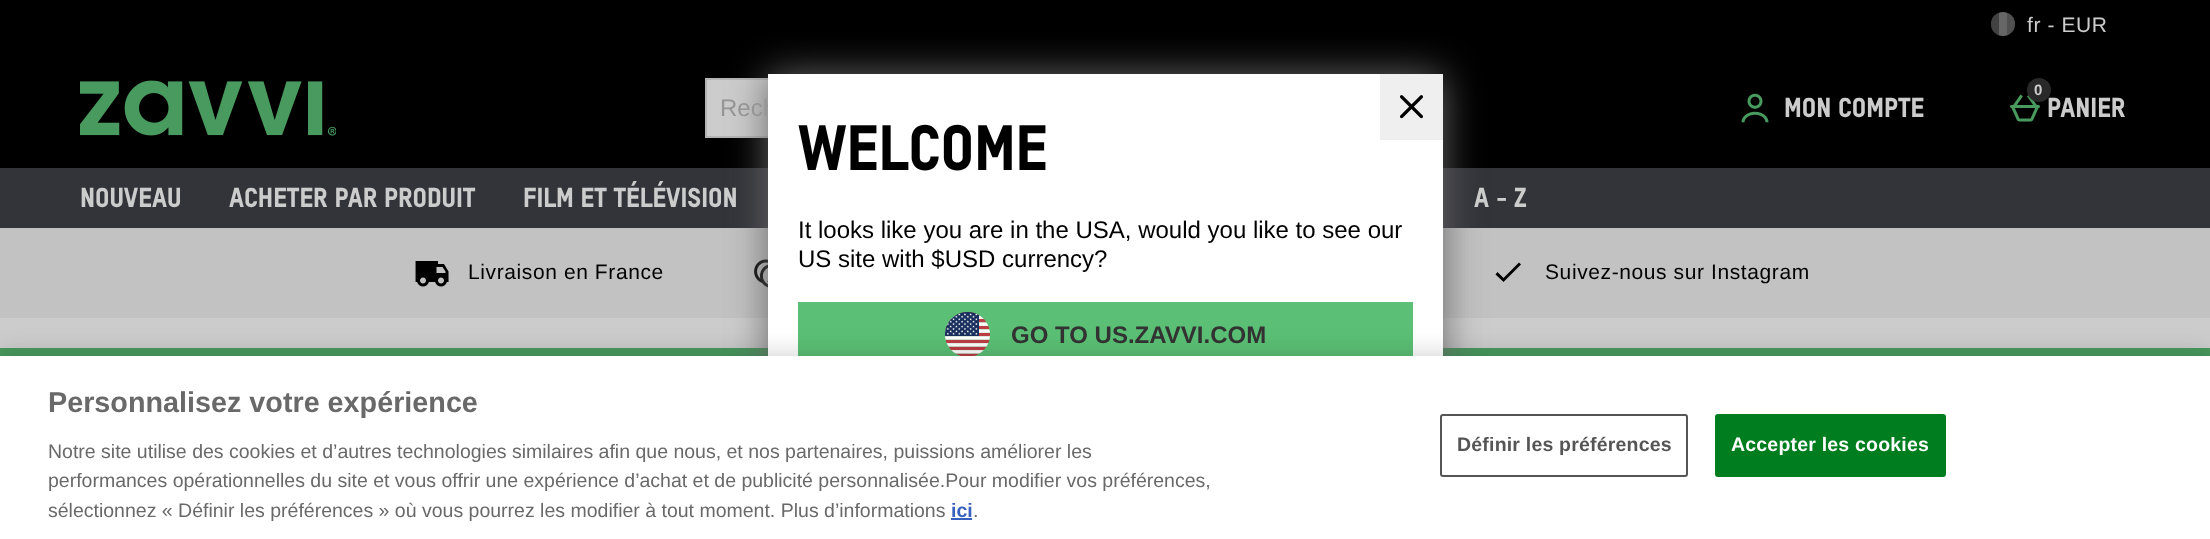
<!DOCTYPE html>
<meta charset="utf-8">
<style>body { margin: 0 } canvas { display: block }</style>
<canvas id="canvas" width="2210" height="539"></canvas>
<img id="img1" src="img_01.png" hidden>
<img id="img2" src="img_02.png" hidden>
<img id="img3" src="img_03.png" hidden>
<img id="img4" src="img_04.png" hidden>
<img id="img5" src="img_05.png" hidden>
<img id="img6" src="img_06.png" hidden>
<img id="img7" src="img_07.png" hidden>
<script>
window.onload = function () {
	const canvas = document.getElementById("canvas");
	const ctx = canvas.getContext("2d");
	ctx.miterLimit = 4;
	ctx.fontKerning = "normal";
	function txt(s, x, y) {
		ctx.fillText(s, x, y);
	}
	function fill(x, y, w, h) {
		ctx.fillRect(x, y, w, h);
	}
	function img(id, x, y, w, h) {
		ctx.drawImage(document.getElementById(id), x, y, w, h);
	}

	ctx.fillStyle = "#CCCCCC";
	fill(0, 0, 2210, 539);
	ctx.fillStyle = "#000000";
	fill(0, 0, 2210, 168);
	ctx.fillStyle = "#666666";
	ctx.beginPath();
	ctx.arc(2003, 24, 12, 0, Math.PI * 2);
	ctx.fill();
	ctx.save();
	ctx.beginPath();
	ctx.roundRect(1991, 12, 24, 24, 12);
	ctx.clip();
	ctx.fillStyle = "rgba(29, 29, 29, 0.5)";
	fill(1991, 12, 8, 24);
	ctx.fillStyle = "rgba(58, 58, 58, 0.5)";
	fill(2007, 12, 8, 24);
	ctx.restore();
	img("img1", 80, 80, 256, 56);
	ctx.fillStyle = "#CCCCCC";
	fill(707, 80, 61, 56);
	ctx.strokeStyle = "#B4B4B4";
	ctx.lineWidth = 2;
	ctx.strokeRect(706, 79, 658, 58);
	img("img2", 1741, 93, 28, 30);
	img("img3", 2010, 94, 30, 28);
	ctx.fillStyle = "#33343A";
	fill(0, 168, 2210, 60);
	ctx.fillStyle = "#C2C2C2";
	fill(0, 228, 2210, 90);
	img("img4", 415, 261, 34, 26);
	img("img5", 754, 259, 14, 29);
	ctx.fillStyle = "#000000";
	ctx.beginPath();
	ctx.moveTo(1502.5, 281);
	ctx.lineTo(1495.5, 274.5);
	ctx.lineTo(1497.5, 272);
	ctx.lineTo(1503.5, 278);
	ctx.lineTo(1519, 262.5);
	ctx.lineTo(1521, 264.5);
	ctx.lineTo(1503.5, 282);
	ctx.closePath();
	ctx.fill();
	ctx.fillStyle = "#499A5E";
	fill(0, 348, 2210, 8);
	ctx.fillStyle = "#666666";
	ctx.filter = "blur(19px)";
	ctx.beginPath();
	ctx.rect(768, 74, 675, 393);
	ctx.fill();
	ctx.filter = "none";
	ctx.letterSpacing = "0.6px";
	ctx.font = "21px Liberation Sans";
	ctx.fillStyle = "#CCCCCC";
	txt("fr - EUR", 2027, 32);
	ctx.letterSpacing = "0px";
	ctx.font = "24px Liberation Sans";
	ctx.fillStyle = "#959595";
	txt("Rech", 720, 116);
	ctx.font = "900 27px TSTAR";
	ctx.fillStyle = "#CCCCCC";
	txt("MON COMPTE", 1784, 117);
	txt("PANIER", 2047, 117);
	ctx.fillStyle = "#292929";
	ctx.beginPath();
	ctx.arc(2039, 90, 12, 0, Math.PI * 2);
	ctx.fill();
	ctx.font = "bold 15px Liberation Sans";
	ctx.fillStyle = "#CCCCCC";
	txt("0", 2034, 95);
	ctx.font = "900 27px TSTAR";
	txt("NOUVEAU", 80, 207);
	txt("ACHETER PAR PRODUIT", 229, 207);
	txt("FILM ET TÉLÉVISION", 523, 207);
	txt("A - Z", 1474, 207);
	ctx.letterSpacing = "0.6px";
	ctx.font = "21px Liberation Sans";
	ctx.fillStyle = "#000000";
	txt("Livraison en France", 468, 279);
	txt("Suivez-nous sur Instagram", 1545, 279);
	ctx.fillStyle = "#FFFFFF";
	fill(768, 74, 675, 282);
	ctx.fillStyle = "#EFEFEF";
	fill(1380, 74, 63, 66);
	img("img6", 1400, 95, 23, 24);
	ctx.letterSpacing = "0px";
	ctx.font = "900 63px TSTAR";
	ctx.fillStyle = "#000000";
	txt("WELCOME", 798, 170);
	ctx.font = "24px Liberation Sans";
	txt("It looks like you are in the USA, would you like to see our", 798, 238);
	txt("US site with $USD currency?", 798, 267);
	ctx.fillStyle = "#5BC075";
	fill(798, 302, 615, 54);
	img("img7", 945, 312, 45, 44);
	ctx.font = "bold 24px Liberation Sans";
	ctx.fillStyle = "#333333";
	txt("GO TO US.ZAVVI.COM", 1011, 343);
	ctx.fillStyle = "rgba(0, 0, 0, 0.2)";
	ctx.filter = "blur(13.5px)";
	ctx.beginPath();
	ctx.rect(0, 356, 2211, 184);
	ctx.fill();
	ctx.filter = "none";
	ctx.fillStyle = "#FFFFFF";
	fill(0, 356, 2210, 183);
	ctx.font = "bold 28.75px Liberation Sans";
	ctx.fillStyle = "#696969";
	txt("Personnalisez votre expérience", 48, 412);
	ctx.font = "19.5px Liberation Sans";
	txt("Notre site utilise des cookies et d’autres technologies similaires afin que nous, et nos partenaires, puissions améliorer les", 48, 458);
	txt("performances opérationnelles du site et vous offrir une expérience d’achat et de publicité personnalisée.Pour modifier vos préférences,", 48, 487);
	txt("sélectionnez « Définir les préférences » où vous pourrez les modifier à tout moment. Plus d’informations", 48, 517);
	ctx.font = "bold 19.5px Liberation Sans";
	ctx.fillStyle = "#3860BE";
	txt("ici", 951, 517);
	fill(951, 518, 21, 2);
	ctx.font = "19.5px Liberation Sans";
	ctx.fillStyle = "#696969";
	txt(".", 973, 517);
	ctx.beginPath();
	ctx.roundRect(1441, 415, 246, 61, 2);
	ctx.strokeStyle = "#555555";
	ctx.stroke();
	ctx.letterSpacing = "0.2px";
	ctx.font = "bold 19.5px Liberation Sans";
	ctx.fillStyle = "#555555";
	txt("Définir les préférences", 1457, 451);
	ctx.fillStyle = "#007D1E";
	ctx.beginPath();
	ctx.roundRect(1716, 415, 229, 61, 2);
	ctx.fill();
	ctx.strokeStyle = "#007D1E";
	ctx.stroke();
	ctx.fillStyle = "#FFFFFF";
	txt("Accepter les cookies", 1731, 451);
};
</script>
